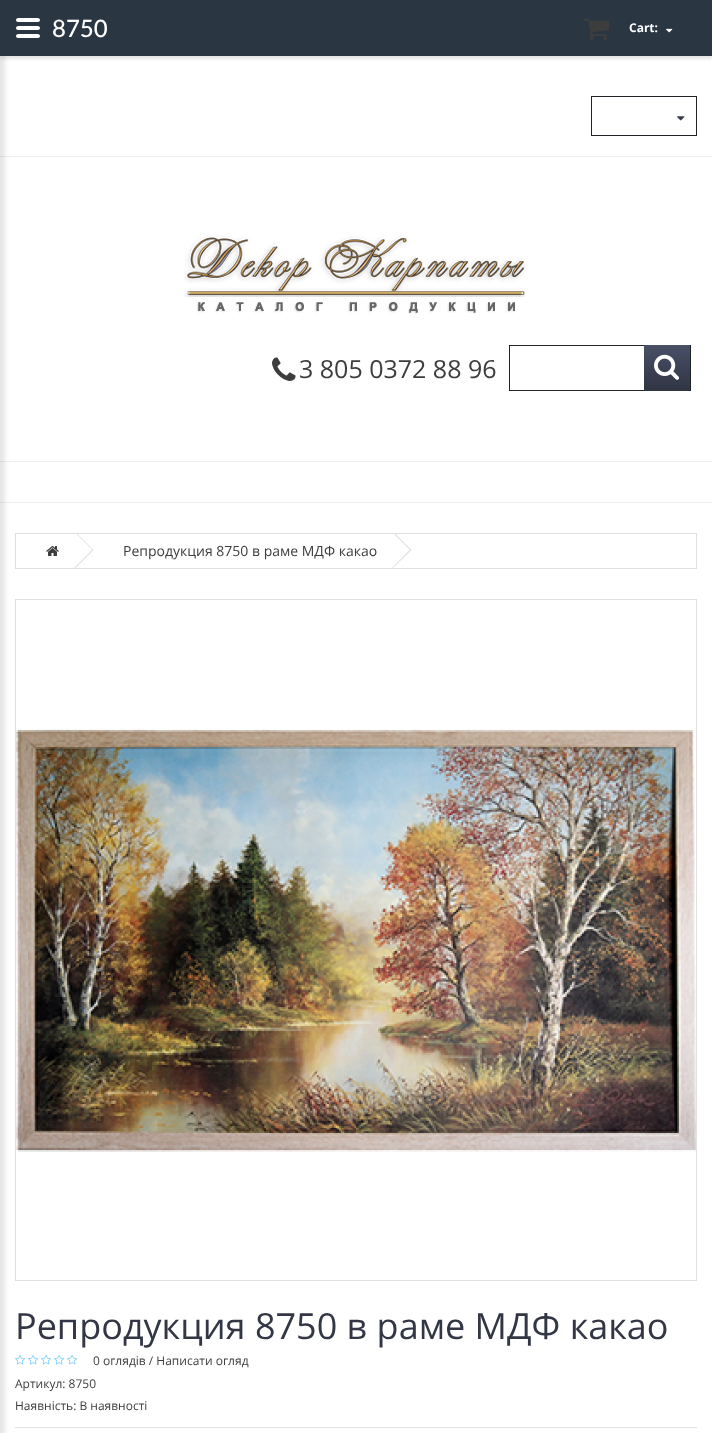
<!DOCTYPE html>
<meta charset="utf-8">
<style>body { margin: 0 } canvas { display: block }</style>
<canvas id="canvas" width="712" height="1433"></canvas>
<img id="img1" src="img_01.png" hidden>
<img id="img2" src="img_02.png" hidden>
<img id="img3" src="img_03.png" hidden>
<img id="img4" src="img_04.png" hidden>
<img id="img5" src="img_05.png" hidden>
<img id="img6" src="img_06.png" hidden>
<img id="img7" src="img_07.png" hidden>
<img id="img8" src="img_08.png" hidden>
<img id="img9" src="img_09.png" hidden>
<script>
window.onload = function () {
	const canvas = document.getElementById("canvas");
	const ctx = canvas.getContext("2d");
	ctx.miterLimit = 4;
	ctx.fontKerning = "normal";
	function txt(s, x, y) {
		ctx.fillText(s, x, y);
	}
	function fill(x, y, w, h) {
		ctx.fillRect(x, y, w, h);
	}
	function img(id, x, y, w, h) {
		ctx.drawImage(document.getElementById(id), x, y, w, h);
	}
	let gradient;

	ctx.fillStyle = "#FFFFFF";
	fill(0, 0, 712, 1433);
	ctx.fillStyle = "#EEEEEE";
	fill(0, 156, 712, 1);
	fill(0, 461, 712, 1);
	fill(0, 502, 712, 1);
	ctx.fillStyle = "rgba(0, 0, 0, 0.1)";
	ctx.filter = "blur(2.5px)";
	ctx.beginPath();
	ctx.rect(-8, -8, 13, 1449);
	ctx.fill();
	ctx.filter = "none";
	ctx.filter = "blur(1.5px)";
	ctx.beginPath();
	ctx.rect(0, 3, 712, 56);
	ctx.fill();
	ctx.filter = "none";
	ctx.fillStyle = "#2B3643";
	fill(0, 0, 712, 56);
	ctx.fillStyle = "#FFFFFF";
	ctx.beginPath();
	ctx.moveTo(38, 30);
	ctx.lineTo(18, 30);
	ctx.bezierCurveTo(17, 30, 16, 29, 16, 28);
	ctx.bezierCurveTo(16, 27, 17, 26, 18, 26);
	ctx.lineTo(38, 26);
	ctx.bezierCurveTo(39, 26, 40, 27, 40, 28);
	ctx.bezierCurveTo(40, 29, 39, 30, 38, 30);
	ctx.closePath();
	ctx.moveTo(38, 38);
	ctx.lineTo(18, 38);
	ctx.bezierCurveTo(17, 38, 16, 37, 16, 36);
	ctx.bezierCurveTo(16, 35, 17, 34, 18, 34);
	ctx.lineTo(38, 34);
	ctx.bezierCurveTo(39, 34, 40, 35, 40, 36);
	ctx.bezierCurveTo(40, 37, 39, 38, 38, 38);
	ctx.closePath();
	ctx.moveTo(38, 22);
	ctx.lineTo(18, 22);
	ctx.bezierCurveTo(17, 22, 16, 21, 16, 20);
	ctx.bezierCurveTo(16, 19, 17, 18, 18, 18);
	ctx.lineTo(38, 18);
	ctx.bezierCurveTo(39, 18, 40, 19, 40, 20);
	ctx.bezierCurveTo(40, 21, 39, 22, 38, 22);
	ctx.closePath();
	ctx.fill();
	img("img1", 584, 18, 25, 22);
	img("img2", 666, 28, 7, 5);
	img("img3", 272, 357, 24, 24);
	ctx.strokeStyle = "#202228";
	ctx.strokeRect(509.5, 345.5, 181, 45);
	gradient = ctx.createLinearGradient(667, 345, 667, 391);
	gradient.addColorStop(0, "#495066");
	gradient.addColorStop(1, "#303543");
	ctx.fillStyle = gradient;
	fill(644, 345, 46, 46);
	img("img4", 654, 354, 25, 26);
	img("img5", 184, 235, 341, 79);
	ctx.strokeRect(591.5, 96.5, 105, 39);
	img("img6", 677, 116, 8, 5);
	ctx.strokeStyle = "#DFDFDF";
	ctx.strokeRect(15.5, 533.5, 681, 35);
	img("img7", 46, 546, 13, 10);
	ctx.fillStyle = "#DFDFDF";
	ctx.beginPath();
	ctx.moveTo(76, 533.5);
	ctx.lineTo(76.5, 533);
	ctx.lineTo(93.5, 550);
	ctx.lineTo(93, 550.5);
	ctx.closePath();
	ctx.fill();
	ctx.beginPath();
	ctx.moveTo(73.5, 568.5);
	ctx.lineTo(93, 549);
	ctx.lineTo(93.5, 550);
	ctx.lineTo(74.5, 569);
	ctx.closePath();
	ctx.fill();
	ctx.beginPath();
	ctx.moveTo(393.5, 533.5);
	ctx.lineTo(394.5, 533);
	ctx.lineTo(411.5, 550);
	ctx.lineTo(410.5, 550.5);
	ctx.closePath();
	ctx.fill();
	ctx.beginPath();
	ctx.moveTo(391.5, 568.5);
	ctx.lineTo(410.5, 549);
	ctx.lineTo(411.5, 550);
	ctx.lineTo(392, 569);
	ctx.closePath();
	ctx.fill();
	ctx.strokeRect(15.5, 599.5, 681, 681);
	img("img8", 16, 728, 680, 424);
	img("img9", 15, 1354, 11, 11);
	img("img9", 28, 1354, 11, 11);
	img("img9", 41, 1354, 11, 11);
	img("img9", 54, 1354, 11, 11);
	img("img9", 67, 1354, 11, 11);
	fill(15, 1427, 682, 1);
	ctx.font = "500 24px Lato";
	ctx.fillStyle = "#FFFFFF";
	txt("8750", 52, 37);
	ctx.font = "bold 12px Open Sans";
	txt("Cart:", 629, 32);
	ctx.font = "25px Open Sans";
	ctx.fillStyle = "#3D3D3D";
	txt("3 805 0372 88 96", 299, 378);
	ctx.font = "14px Open Sans";
	txt("Репродукция 8750 в раме МДФ какао", 123, 556);
	ctx.font = "36px Open Sans";
	ctx.fillStyle = "#333745";
	txt("Репродукция 8750 в раме МДФ какао", 15, 1339);
	ctx.font = "12px Open Sans";
	ctx.fillStyle = "#3D3D3D";
	txt("0 оглядів / Написати огляд", 93, 1365);
	txt("Артикул: 8750", 15, 1388);
	txt("Наявність: В наявності", 15, 1410);
};
</script>
